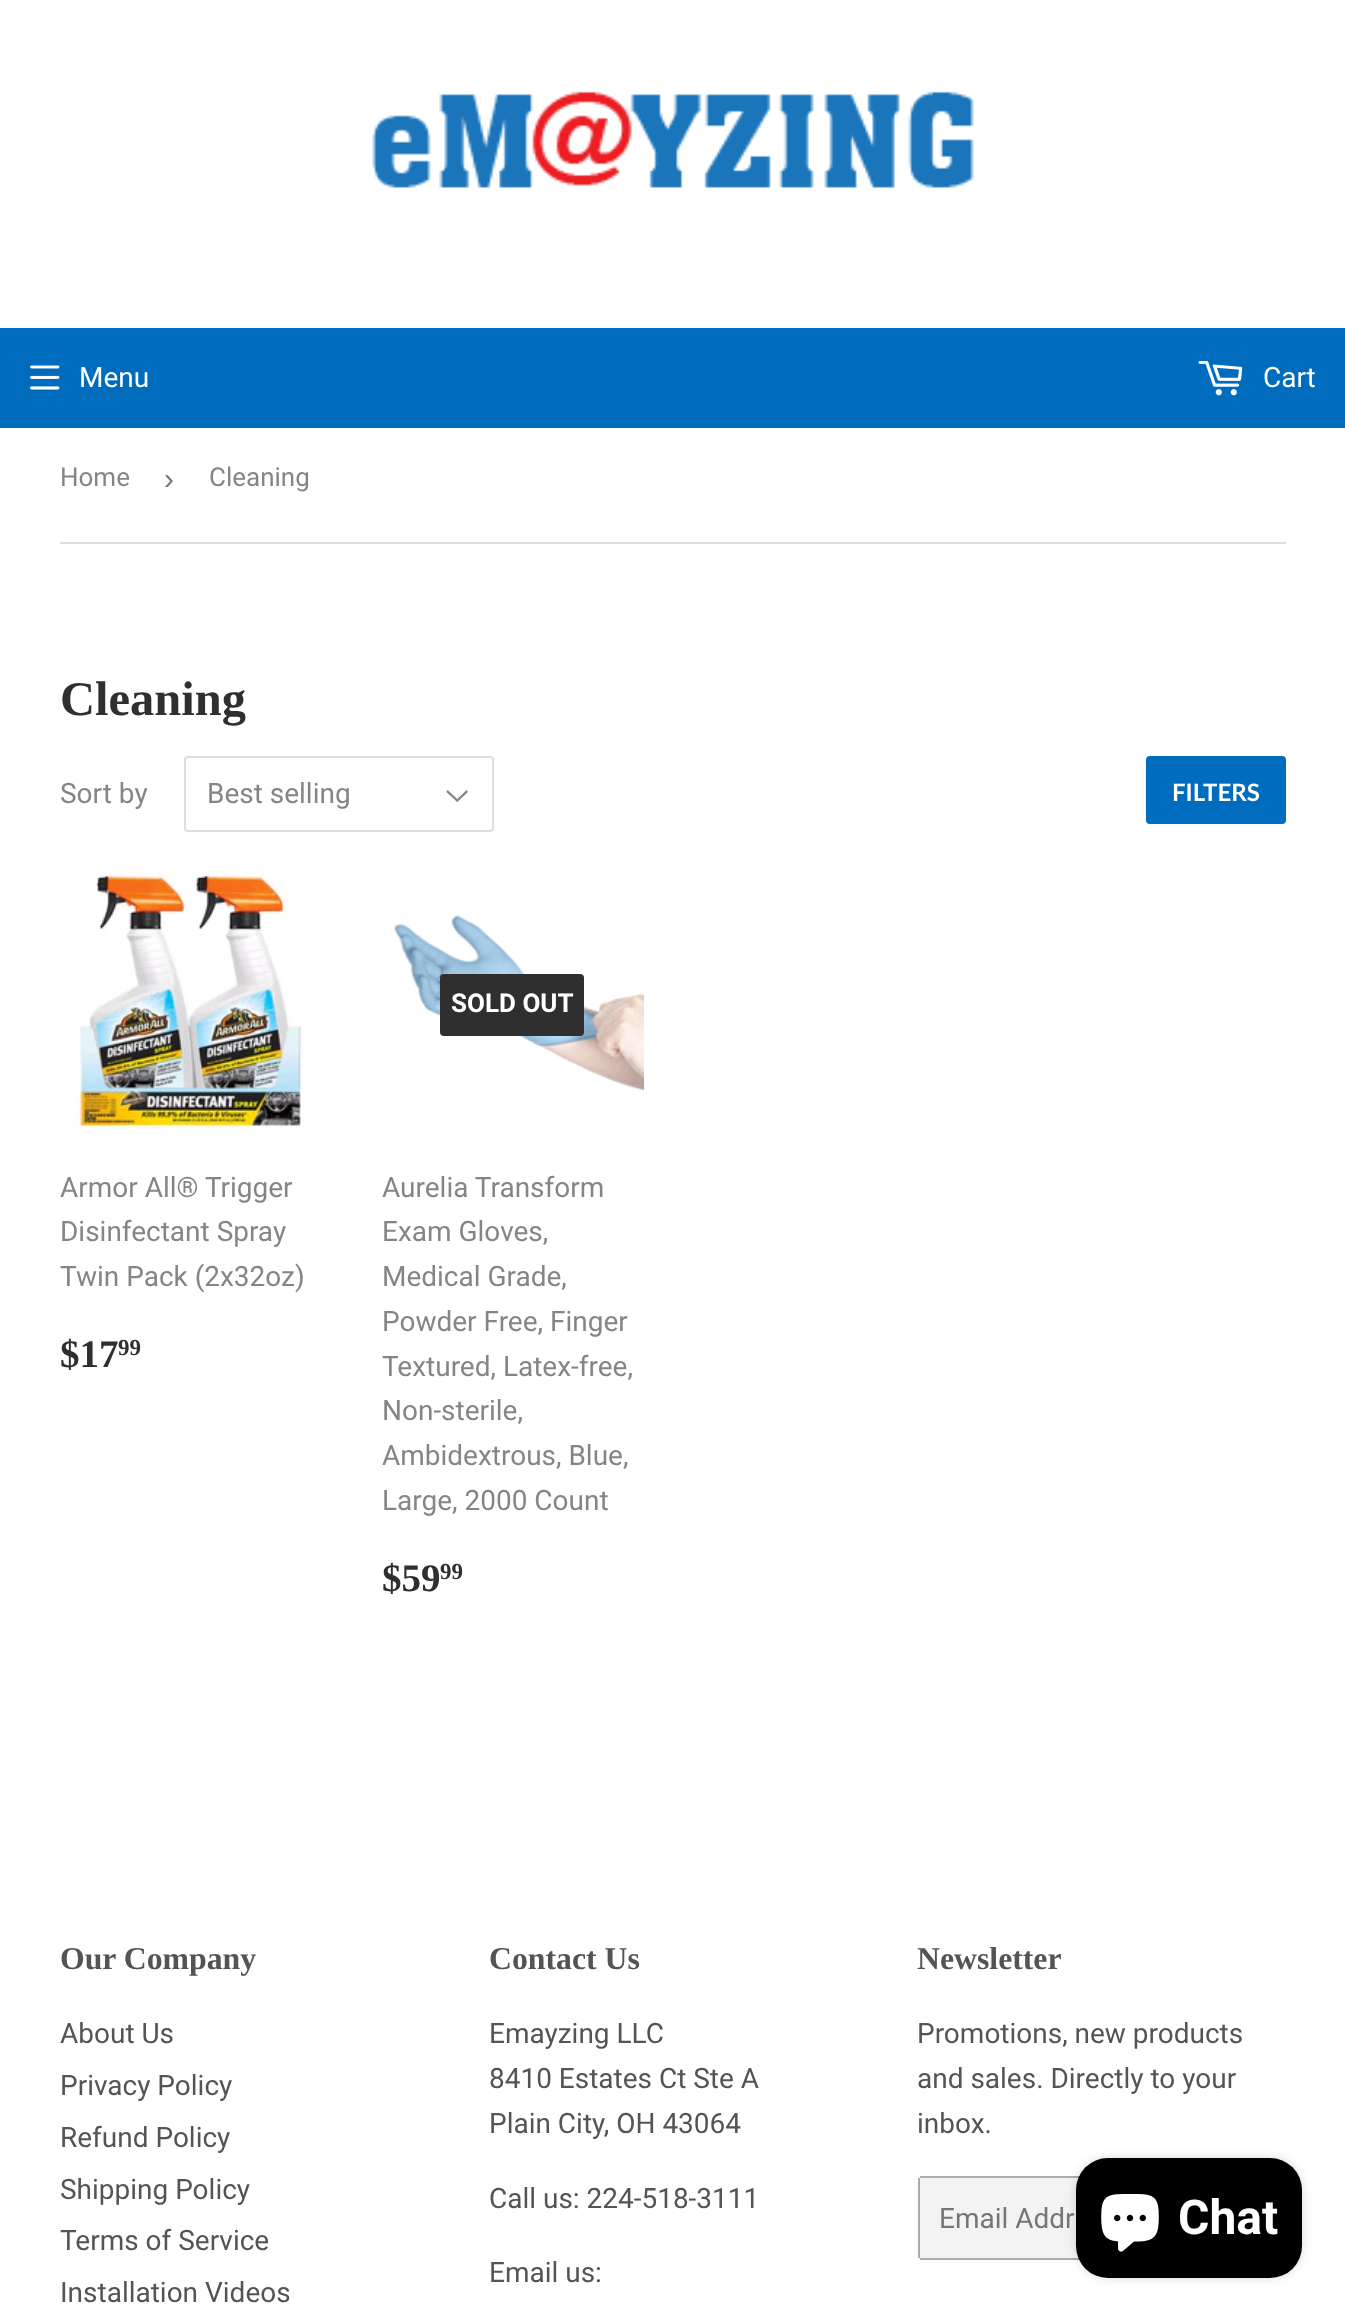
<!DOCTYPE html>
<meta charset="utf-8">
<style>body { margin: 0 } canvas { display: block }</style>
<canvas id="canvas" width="1345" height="2320"></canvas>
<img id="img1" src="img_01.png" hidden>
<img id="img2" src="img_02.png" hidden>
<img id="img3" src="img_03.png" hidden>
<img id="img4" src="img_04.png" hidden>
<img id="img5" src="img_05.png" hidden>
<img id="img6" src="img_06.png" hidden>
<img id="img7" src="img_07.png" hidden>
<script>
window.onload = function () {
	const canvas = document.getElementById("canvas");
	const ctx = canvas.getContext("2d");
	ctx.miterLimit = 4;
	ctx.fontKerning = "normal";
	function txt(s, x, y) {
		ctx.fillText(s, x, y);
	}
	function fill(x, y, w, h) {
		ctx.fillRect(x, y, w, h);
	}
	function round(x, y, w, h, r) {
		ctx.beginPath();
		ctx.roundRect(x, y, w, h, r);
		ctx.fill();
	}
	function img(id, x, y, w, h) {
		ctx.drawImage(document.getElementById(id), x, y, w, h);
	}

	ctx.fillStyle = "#FFFFFF";
	fill(0, 0, 1345, 2320);
	img("img1", 372, 91, 602, 97);
	ctx.fillStyle = "#006CBD";
	fill(0, 328, 1345, 100);
	img("img2", 30, 365, 30, 25);
	img("img3", 1198, 361, 45, 35);
	ctx.fillStyle = "#DEDEDE";
	fill(60, 542, 1226, 2);
	img("img4", 446, 790, 22, 12);
	ctx.beginPath();
	ctx.roundRect(185, 757, 308, 74, 3);
	ctx.strokeStyle = "#DEDEDE";
	ctx.lineWidth = 2;
	ctx.stroke();
	ctx.fillStyle = "#006CBD";
	round(1146, 756, 140, 68, 4);
	img("img5", 72, 872, 233, 256);
	img("img6", 393, 915, 251, 177);
	ctx.fillStyle = "#2F2F2F";
	round(440, 974, 144, 62, 4);
	ctx.fillStyle = "#F3F3F3";
	round(918, 2176, 222, 84, 4);
	ctx.fillStyle = "#ABABAB";
	fill(920, 2176, 160, 2);
	fill(920, 2258, 160, 2);
	fill(918, 2178, 2, 80);
	ctx.fillStyle = "rgba(0, 0, 0, 0.15)";
	ctx.filter = "blur(5px)";
	ctx.beginPath();
	ctx.roundRect(1076, 2158, 226, 120, 32);
	ctx.fill();
	ctx.filter = "none";
	ctx.fillStyle = "#000000";
	round(1076, 2158, 226, 120, 32);
	img("img7", 1101, 2194, 58, 58);
	ctx.font = "28px Roboto";
	ctx.fillStyle = "#FFFFFF";
	txt("Menu", 79, 387);
	txt("Cart", 1263, 387);
	ctx.font = "26px Roboto";
	ctx.fillStyle = "#858585";
	txt("Home", 60, 486);
	ctx.font = "30px Liberation Sans";
	ctx.fillStyle = "#767676";
	txt("›", 164, 489);
	ctx.font = "26px Roboto";
	ctx.fillStyle = "#858585";
	txt("Cleaning", 209, 486);
	ctx.font = "bold 48.5px Liberation Serif";
	ctx.fillStyle = "#2F2F2F";
	txt("Cleaning", 60, 715);
	ctx.font = "28px Roboto";
	ctx.fillStyle = "#858585";
	txt("Sort by", 60, 803);
	txt("Best selling", 207, 803);
	ctx.font = "bold 24px Lato";
	ctx.fillStyle = "#FFFFFF";
	txt("FILTERS", 1172, 801);
	ctx.font = "28px Roboto";
	ctx.fillStyle = "#858585";
	txt("Armor All® Trigger", 60, 1197);
	txt("Disinfectant Spray", 60, 1241);
	txt("Twin Pack (2x32oz)", 60, 1286);
	ctx.font = "bold 39px Liberation Serif";
	ctx.fillStyle = "#2F2F2F";
	txt("$17", 60, 1367);
	ctx.font = "bold 23px Liberation Serif";
	txt("99", 118, 1355);
	ctx.font = "bold 26px Roboto";
	ctx.fillStyle = "#FFFFFF";
	txt("SOLD OUT", 451, 1012);
	ctx.font = "28px Roboto";
	ctx.fillStyle = "#858585";
	txt("Aurelia Transform", 382, 1197);
	txt("Exam Gloves,", 382, 1241);
	txt("Medical Grade,", 382, 1286);
	txt("Powder Free, Finger", 382, 1331);
	txt("Textured, Latex-free,", 382, 1376);
	txt("Non-sterile,", 382, 1420);
	txt("Ambidextrous, Blue,", 382, 1465);
	txt("Large, 2000 Count", 382, 1510);
	ctx.font = "bold 39px Liberation Serif";
	ctx.fillStyle = "#2F2F2F";
	txt("$59", 382, 1591);
	ctx.font = "bold 23px Liberation Serif";
	txt("99", 440, 1579);
	ctx.font = "bold 31.75px Liberation Serif";
	ctx.fillStyle = "#545454";
	txt("Our Company", 60, 1969);
	ctx.font = "28px Roboto";
	txt("About Us", 60, 2043);
	txt("Privacy Policy", 60, 2095);
	txt("Refund Policy", 60, 2147);
	txt("Shipping Policy", 60, 2199);
	txt("Terms of Service", 60, 2250);
	txt("Installation Videos", 60, 2302);
	ctx.font = "bold 31.75px Liberation Serif";
	txt("Contact Us", 489, 1969);
	ctx.font = "28px Roboto";
	txt("Emayzing LLC", 489, 2043);
	txt("8410 Estates Ct Ste A", 489, 2088);
	txt("Plain City, OH 43064", 489, 2133);
	txt("Call us: 224-518-3111", 489, 2208);
	txt("Email us:", 489, 2282);
	ctx.font = "bold 31.75px Liberation Serif";
	txt("Newsletter", 917, 1969);
	ctx.font = "28px Roboto";
	txt("Promotions, new products", 917, 2043);
	txt("and sales. Directly to your", 917, 2088);
	txt("inbox.", 917, 2133);
	ctx.fillStyle = "#767676";
	txt("Email Addr", 939, 2228);
	ctx.font = "bold 48px Roboto";
	ctx.fillStyle = "#FFFFFF";
	txt("Chat", 1178, 2234);
};
</script>
